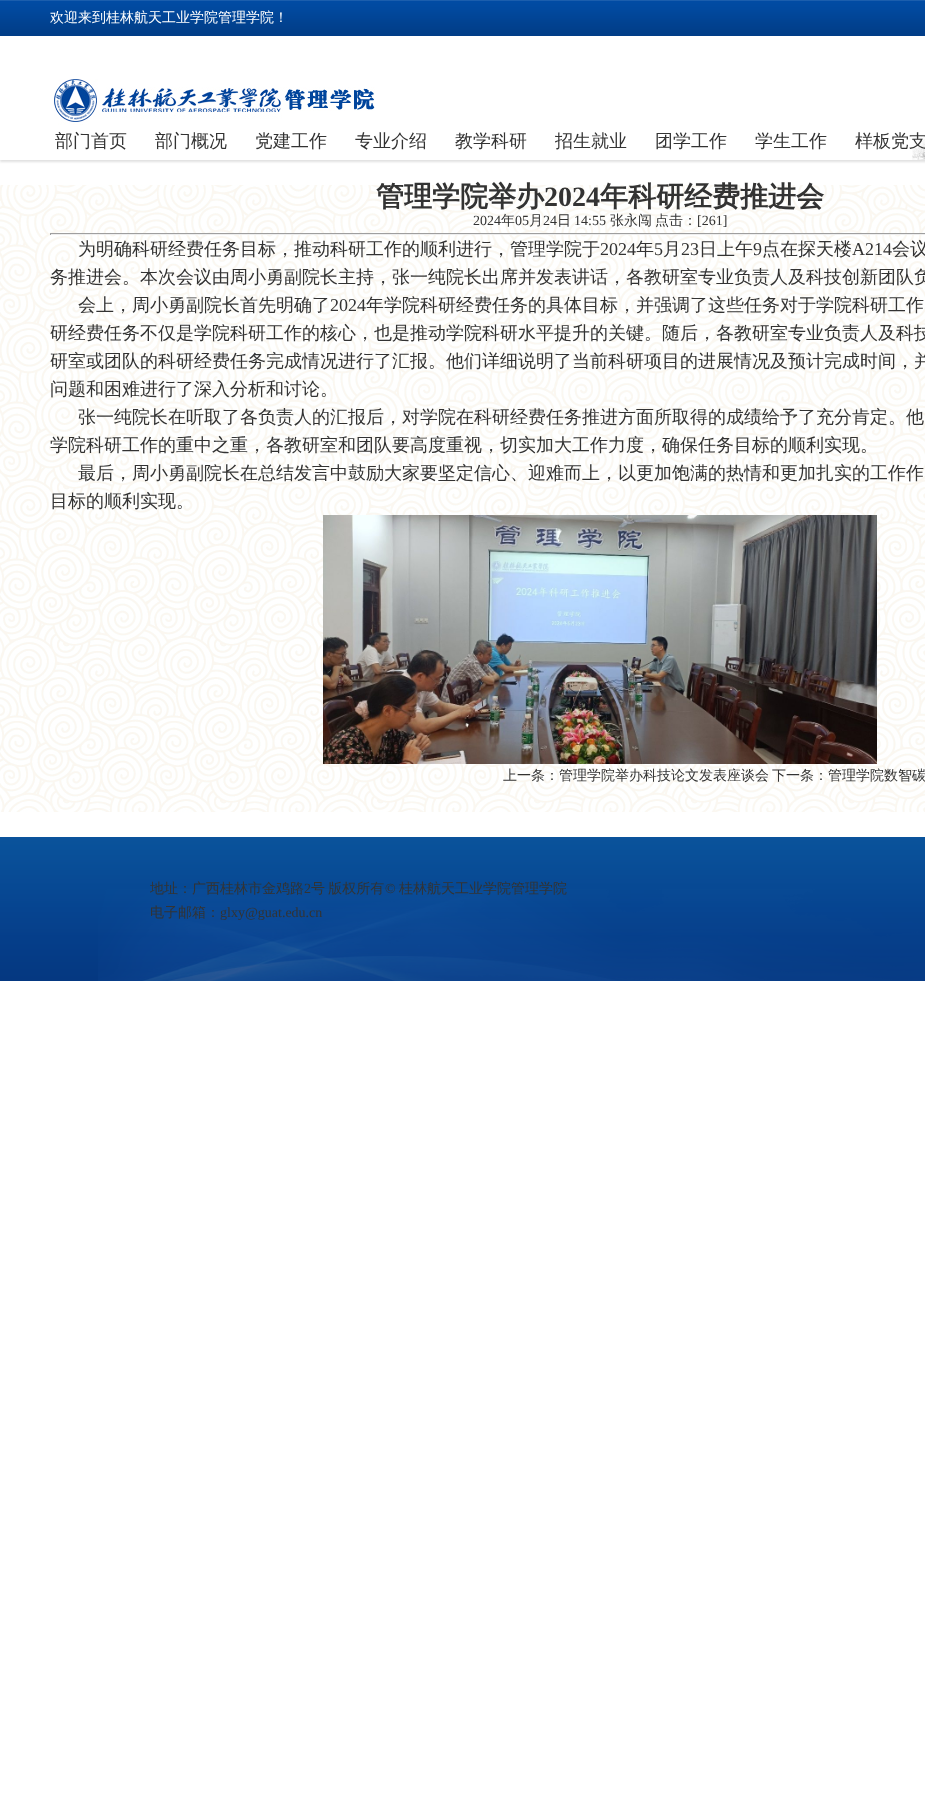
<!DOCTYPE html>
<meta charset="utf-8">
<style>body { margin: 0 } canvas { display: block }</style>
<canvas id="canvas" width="925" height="1811"></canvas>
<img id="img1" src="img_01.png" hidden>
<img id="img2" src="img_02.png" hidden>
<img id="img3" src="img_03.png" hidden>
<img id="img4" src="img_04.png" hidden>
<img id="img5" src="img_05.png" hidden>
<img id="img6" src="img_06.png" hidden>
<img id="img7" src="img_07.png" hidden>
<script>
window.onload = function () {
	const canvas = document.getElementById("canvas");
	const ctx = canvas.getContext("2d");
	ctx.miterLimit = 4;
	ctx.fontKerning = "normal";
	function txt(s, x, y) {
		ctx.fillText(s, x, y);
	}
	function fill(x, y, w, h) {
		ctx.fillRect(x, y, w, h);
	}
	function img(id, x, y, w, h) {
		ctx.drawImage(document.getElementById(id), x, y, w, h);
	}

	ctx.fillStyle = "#FFFFFF";
	fill(0, 0, 925, 1811);
	ctx.save();
	ctx.beginPath();
	ctx.rect(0, 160, 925, 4);
	ctx.clip();
	ctx.fillStyle = "#E1E1E1";
	ctx.filter = "blur(1px)";
	ctx.beginPath();
	ctx.rect(0, 2, 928, 160);
	ctx.fill();
	ctx.filter = "none";
	ctx.restore();
	img("img1", 912, 135, 13, 25);
	img("img2", 0, 0, 925, 36);
	img("img3", 54, 79, 321, 46);
	img("img4", 0, 185, 925, 627);
	ctx.fillStyle = "#9F9F9F";
	fill(50, 233, 875, 1);
	ctx.fillStyle = "#EEEEEE";
	fill(50, 234, 875, 1);
	ctx.fillStyle = "#9F9F9F";
	fill(50, 233, 1, 2);
	img("img5", 323, 515, 554, 249);
	img("img6", 0, 837, 925, 144);
	img("img7", 98, 889, 827, 92);
	ctx.font = "500 14px WenQuanYi Zen Hei";
	ctx.fillStyle = "#FFFFFF";
	txt("欢迎来到桂林航天工业学院管理学院！", 50, 22);
	ctx.font = "500 18px WenQuanYi Zen Hei";
	ctx.fillStyle = "#333333";
	txt("部门首页", 55, 147);
	txt("部门概况", 155, 147);
	txt("党建工作", 255, 147);
	txt("专业介绍", 355, 147);
	txt("教学科研", 455, 147);
	txt("招生就业", 555, 147);
	txt("团学工作", 655, 147);
	txt("学生工作", 755, 147);
	txt("样板党支", 855, 147);
	ctx.font = "bold 28px WenQuanYi Zen Hei";
	txt("管理学院举办", 376, 206);
	ctx.font = "bold 28px Liberation Serif";
	txt("2024", 544, 206);
	ctx.font = "bold 28px WenQuanYi Zen Hei";
	txt("年科研经费推进会", 600, 206);
	ctx.font = "14px Liberation Serif";
	txt("2024", 473, 225);
	ctx.font = "500 14px WenQuanYi Zen Hei";
	txt("年", 501, 225);
	ctx.font = "14px Liberation Serif";
	txt("05", 515, 225);
	ctx.font = "500 14px WenQuanYi Zen Hei";
	txt("月", 529, 225);
	ctx.font = "14px Liberation Serif";
	txt("24", 543, 225);
	ctx.font = "500 14px WenQuanYi Zen Hei";
	txt("日", 557, 225);
	ctx.font = "14px Liberation Serif";
	txt("14:55", 574, 225);
	ctx.font = "500 14px WenQuanYi Zen Hei";
	txt("张永闯", 610, 225);
	txt("点击：", 655, 225);
	ctx.font = "14px Liberation Serif";
	txt("[261]", 697, 225);
	ctx.font = "500 18px WenQuanYi Zen Hei";
	txt("为明确科研经费任务目标，推动科研工作的顺利进行，管理学院于", 78, 255);
	ctx.font = "18px Liberation Serif";
	txt("2024", 600, 255);
	ctx.font = "500 18px WenQuanYi Zen Hei";
	txt("年", 636, 255);
	ctx.font = "18px Liberation Serif";
	txt("5", 654, 255);
	ctx.font = "500 18px WenQuanYi Zen Hei";
	txt("月", 663, 255);
	ctx.font = "18px Liberation Serif";
	txt("23", 681, 255);
	ctx.font = "500 18px WenQuanYi Zen Hei";
	txt("日上午", 699, 255);
	ctx.font = "18px Liberation Serif";
	txt("9", 753, 255);
	ctx.font = "500 18px WenQuanYi Zen Hei";
	txt("点在探天楼", 762, 255);
	ctx.font = "18px Liberation Serif";
	txt("A214", 852, 255);
	ctx.font = "500 18px WenQuanYi Zen Hei";
	txt("会议", 892, 255);
	txt("务推进会。本次会议由周小勇副院长主持，张一纯院长出席并发表讲话，各教研室专业负责人及科技创新团队负", 50, 283);
	txt("会上，周小勇副院长首先明确了", 78, 311);
	ctx.font = "18px Liberation Serif";
	txt("2024", 330, 311);
	ctx.font = "500 18px WenQuanYi Zen Hei";
	txt("年学院科研经费任务的具体目标，并强调了这些任务对于学院科研工作", 366, 311);
	txt("研经费任务不仅是学院科研工作的核心，也是推动学院科研水平提升的关键。随后，各教研室专业负责人及科技", 50, 339);
	txt("研室或团队的科研经费任务完成情况进行了汇报。他们详细说明了当前科研项目的进展情况及预计完成时间，并", 50, 367);
	txt("问题和困难进行了深入分析和讨论。", 50, 395);
	txt("张一纯院长在听取了各负责人的汇报后，对学院在科研经费任务推进方面所取得的成绩给予了充分肯定。他", 78, 423);
	txt("学院科研工作的重中之重，各教研室和团队要高度重视，切实加大工作力度，确保任务目标的顺利实现。", 50, 451);
	txt("最后，周小勇副院长在总结发言中鼓励大家要坚定信心、迎难而上，以更加饱满的热情和更加扎实的工作作", 78, 479);
	txt("目标的顺利实现。", 50, 507);
	ctx.font = "500 14px WenQuanYi Zen Hei";
	txt("上一条：管理学院举办科技论文发表座谈会", 503, 780);
	txt("下一条：管理学院数智碳", 772, 780);
	txt("地址：广西桂林市金鸡路", 150, 893);
	ctx.font = "14px Liberation Serif";
	txt("2", 304, 893);
	ctx.wordSpacing = "-1px";
	ctx.font = "500 14px WenQuanYi Zen Hei";
	txt("号 版权所有", 311, 893);
	ctx.wordSpacing = "0px";
	ctx.font = "14px Liberation Serif";
	txt("©", 385, 893);
	ctx.font = "500 14px WenQuanYi Zen Hei";
	txt("桂林航天工业学院管理学院", 399, 893);
	txt("电子邮箱：", 150, 917);
	ctx.font = "14px Liberation Serif";
	txt("glxy@guat.edu.cn", 220, 917);
};
</script>
